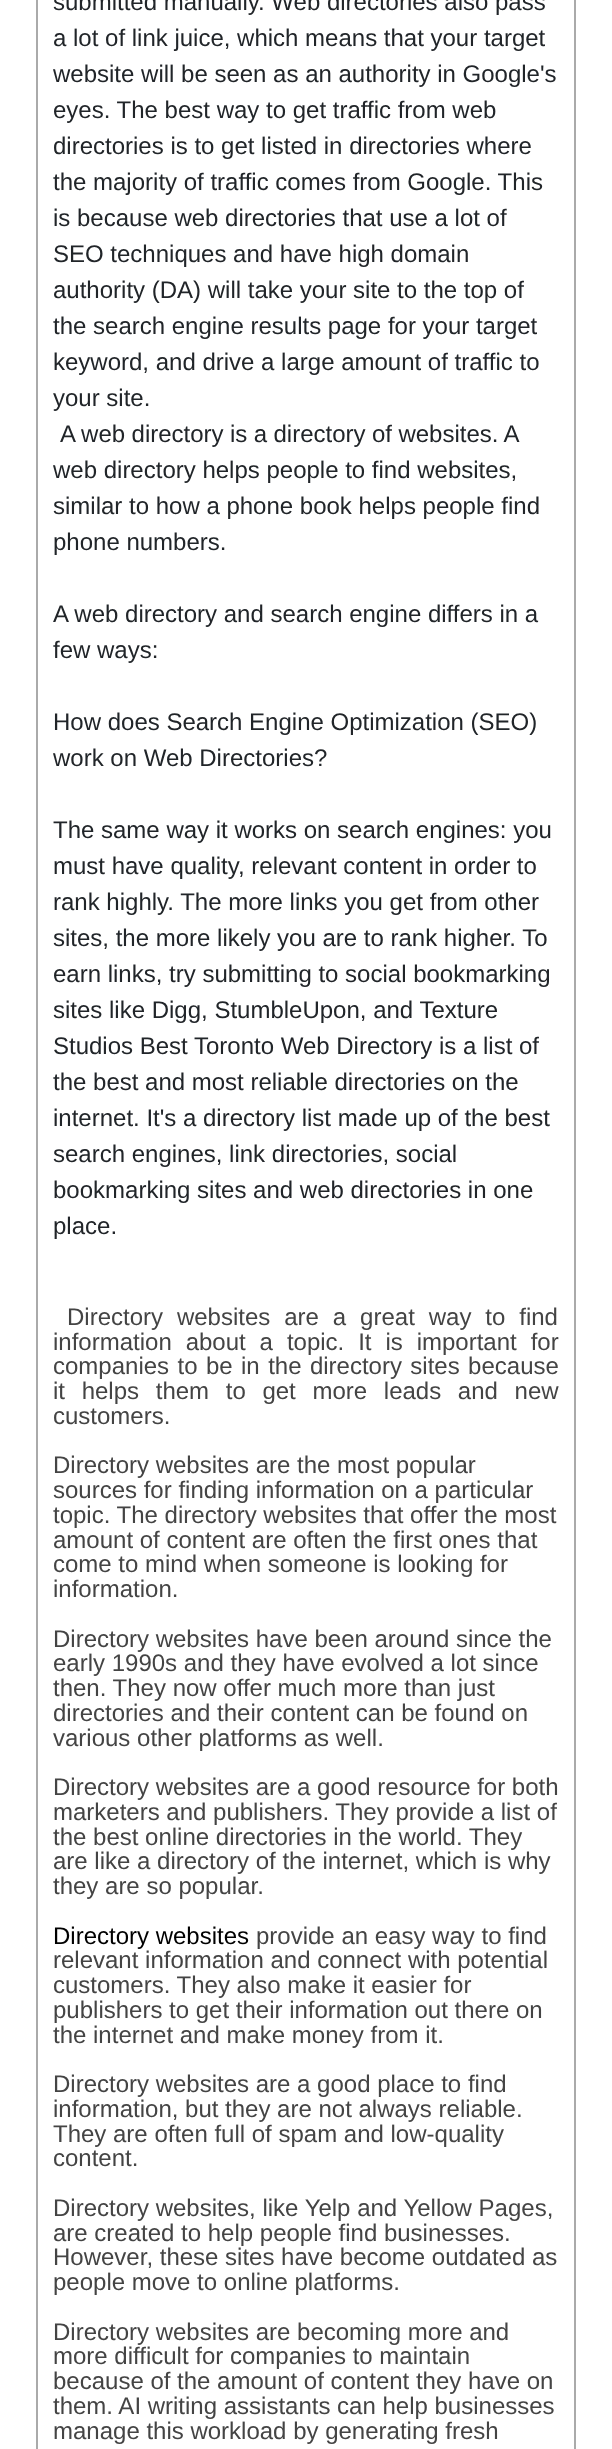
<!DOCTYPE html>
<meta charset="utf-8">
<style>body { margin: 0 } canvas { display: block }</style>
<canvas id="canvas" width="612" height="2449"></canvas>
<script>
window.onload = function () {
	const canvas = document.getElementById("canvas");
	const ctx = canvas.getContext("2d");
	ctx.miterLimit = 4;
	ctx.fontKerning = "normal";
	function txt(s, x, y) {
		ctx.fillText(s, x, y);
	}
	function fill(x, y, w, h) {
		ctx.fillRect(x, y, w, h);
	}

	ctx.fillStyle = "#FFFFFF";
	fill(0, 0, 612, 2449);
	ctx.strokeStyle = "#AAAAAA";
	ctx.lineWidth = 2;
	ctx.strokeRect(37, -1, 538, 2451);
	ctx.font = "24px Liberation Sans";
	ctx.fillStyle = "#212529";
	txt("submitted manually. Web directories also pass", 53, 10);
	txt("a lot of link juice, which means that your target", 53, 46);
	txt("website will be seen as an authority in Google's", 53, 82);
	txt("eyes. The best way to get traffic from web", 53, 118);
	txt("directories is to get listed in directories where", 53, 154);
	txt("the majority of traffic comes from Google. This", 53, 190);
	txt("is because web directories that use a lot of", 53, 226);
	txt("SEO techniques and have high domain", 53, 262);
	txt("authority (DA) will take your site to the top of", 53, 298);
	txt("the search engine results page for your target", 53, 334);
	txt("keyword, and drive a large amount of traffic to", 53, 370);
	txt("your site.", 53, 406);
	ctx.wordSpacing = "-0.25px";
	txt("A web directory is a directory of websites. A", 60, 442);
	ctx.wordSpacing = "0px";
	txt("web directory helps people to find websites,", 53, 478);
	txt("similar to how a phone book helps people find", 53, 514);
	txt("phone numbers.", 53, 550);
	txt("A web directory and search engine differs in a", 53, 622);
	txt("few ways:", 53, 658);
	txt("How does Search Engine Optimization (SEO)", 53, 730);
	txt("work on Web Directories?", 53, 766);
	txt("The same way it works on search engines: you", 53, 838);
	txt("must have quality, relevant content in order to", 53, 874);
	txt("rank highly. The more links you get from other", 53, 910);
	txt("sites, the more likely you are to rank higher. To", 53, 946);
	txt("earn links, try submitting to social bookmarking", 53, 982);
	txt("sites like Digg, StumbleUpon, and Texture", 53, 1018);
	txt("Studios Best Toronto Web Directory is a list of", 53, 1054);
	txt("the best and most reliable directories on the", 53, 1090);
	txt("internet. It's a directory list made up of the best", 53, 1126);
	txt("search engines, link directories, social", 53, 1162);
	txt("bookmarking sites and web directories in one", 53, 1198);
	txt("place.", 53, 1234);
	ctx.wordSpacing = "7.25px";
	ctx.fillStyle = "#444444";
	txt("Directory websites are a great way to find", 67, 1325);
	txt("information about a topic. It is important for", 53, 1350);
	ctx.wordSpacing = "1.75px";
	txt("companies to be in the directory sites because", 53, 1374);
	ctx.wordSpacing = "10px";
	txt("it helps them to get more leads and new", 53, 1399);
	ctx.wordSpacing = "0px";
	txt("customers.", 53, 1424);
	txt("Directory websites are the most popular", 53, 1473);
	txt("sources for finding information on a particular", 53, 1498);
	txt("topic. The directory websites that offer the most", 53, 1523);
	txt("amount of content are often the first ones that", 53, 1548);
	txt("come to mind when someone is looking for", 53, 1572);
	txt("information.", 53, 1597);
	txt("Directory websites have been around since the", 53, 1647);
	txt("early 1990s and they have evolved a lot since", 53, 1671);
	txt("then. They now offer much more than just", 53, 1696);
	txt("directories and their content can be found on", 53, 1721);
	txt("various other platforms as well.", 53, 1746);
	txt("Directory websites are a good resource for both", 53, 1795);
	txt("marketers and publishers. They provide a list of", 53, 1820);
	txt("the best online directories in the world. They", 53, 1845);
	txt("are like a directory of the internet, which is why", 53, 1869);
	txt("they are so popular.", 53, 1894);
	ctx.fillStyle = "#000000";
	txt("Directory websites", 53, 1944);
	ctx.fillStyle = "#444444";
	txt("provide an easy way to find", 256, 1944);
	txt("relevant information and connect with potential", 53, 1968);
	txt("customers. They also make it easier for", 53, 1993);
	txt("publishers to get their information out there on", 53, 2018);
	txt("the internet and make money from it.", 53, 2043);
	txt("Directory websites are a good place to find", 53, 2092);
	txt("information, but they are not always reliable.", 53, 2117);
	txt("They are often full of spam and low-quality", 53, 2142);
	txt("content.", 53, 2166);
	txt("Directory websites, like Yelp and Yellow Pages,", 53, 2216);
	txt("are created to help people find businesses.", 53, 2241);
	txt("However, these sites have become outdated as", 53, 2265);
	txt("people move to online platforms.", 53, 2290);
	txt("Directory websites are becoming more and", 53, 2340);
	txt("more difficult for companies to maintain", 53, 2364);
	txt("because of the amount of content they have on", 53, 2389);
	txt("them. AI writing assistants can help businesses", 53, 2414);
	txt("manage this workload by generating fresh", 53, 2439);
};
</script>
